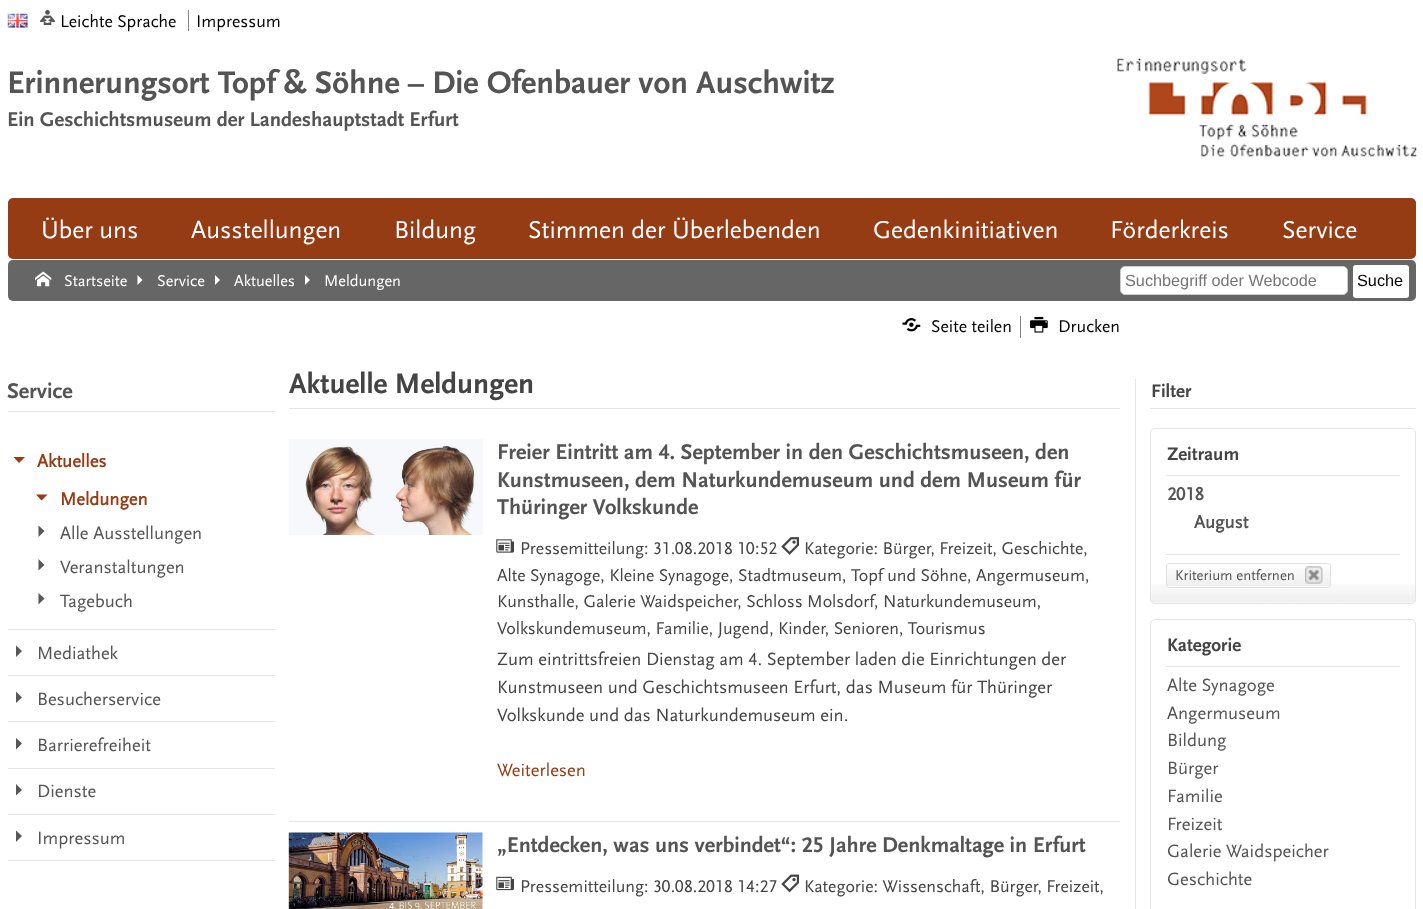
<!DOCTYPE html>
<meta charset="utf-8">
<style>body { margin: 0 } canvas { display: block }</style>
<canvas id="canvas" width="1423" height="909"></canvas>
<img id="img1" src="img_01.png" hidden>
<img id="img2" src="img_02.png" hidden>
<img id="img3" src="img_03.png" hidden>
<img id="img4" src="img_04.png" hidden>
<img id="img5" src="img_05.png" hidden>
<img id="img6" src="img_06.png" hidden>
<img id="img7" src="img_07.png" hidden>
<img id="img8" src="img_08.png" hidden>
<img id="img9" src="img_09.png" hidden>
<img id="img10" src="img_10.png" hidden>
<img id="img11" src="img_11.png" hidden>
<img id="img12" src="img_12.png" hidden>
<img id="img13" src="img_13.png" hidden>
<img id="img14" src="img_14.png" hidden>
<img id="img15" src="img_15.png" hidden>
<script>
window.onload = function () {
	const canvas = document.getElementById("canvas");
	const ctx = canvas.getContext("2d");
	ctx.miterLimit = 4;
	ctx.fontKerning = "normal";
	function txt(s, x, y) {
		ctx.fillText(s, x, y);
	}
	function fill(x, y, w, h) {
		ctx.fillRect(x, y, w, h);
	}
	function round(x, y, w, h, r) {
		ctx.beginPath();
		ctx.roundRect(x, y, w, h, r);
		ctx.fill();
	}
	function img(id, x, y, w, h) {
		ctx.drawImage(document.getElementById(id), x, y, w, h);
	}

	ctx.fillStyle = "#FFFFFF";
	fill(0, 0, 1423, 909);
	img("img1", 7, 13, 21, 15);
	img("img2", 40, 10, 15, 15);
	ctx.fillStyle = "#848484";
	fill(188, 10, 1, 21);
	img("img3", 1117, 58, 300, 99);
	ctx.fillStyle = "#963C14";
	round(8, 198, 1408, 61, 5);
	ctx.fillStyle = "#666666";
	round(8, 260, 1408, 41, 5);
	img("img4", 35, 271, 17, 16);
	ctx.fillStyle = "#FFFFFF";
	ctx.beginPath();
	ctx.moveTo(137.5, 285);
	ctx.lineTo(137.5, 275);
	ctx.lineTo(142.5, 280);
	ctx.closePath();
	ctx.fill();
	ctx.beginPath();
	ctx.moveTo(215, 285);
	ctx.lineTo(215, 275);
	ctx.lineTo(220, 280);
	ctx.closePath();
	ctx.fill();
	ctx.beginPath();
	ctx.moveTo(305, 285);
	ctx.lineTo(305, 275);
	ctx.lineTo(310, 280);
	ctx.closePath();
	ctx.fill();
	ctx.beginPath();
	ctx.roundRect(1120.5, 266.5, 227, 28, 4.5);
	ctx.fill();
	ctx.strokeStyle = "#CCCCCC";
	ctx.stroke();
	round(1353, 265, 56, 33, 3);
	ctx.fillStyle = "#E5E5E5";
	fill(8, 411, 267, 1);
	fill(8, 629, 267, 1);
	ctx.fillStyle = "#963C14";
	ctx.beginPath();
	ctx.moveTo(13.5, 457);
	ctx.lineTo(25, 457);
	ctx.lineTo(19, 463);
	ctx.closePath();
	ctx.moveTo(36, 494.5);
	ctx.lineTo(47.5, 494.5);
	ctx.lineTo(41.5, 500.5);
	ctx.closePath();
	ctx.fill();
	ctx.fillStyle = "#575757";
	ctx.beginPath();
	ctx.moveTo(38.5, 537);
	ctx.lineTo(38.5, 525.5);
	ctx.lineTo(44.5, 531);
	ctx.closePath();
	ctx.moveTo(38.5, 570.5);
	ctx.lineTo(38.5, 559);
	ctx.lineTo(44.5, 565);
	ctx.closePath();
	ctx.fill();
	ctx.beginPath();
	ctx.moveTo(38.5, 604.5);
	ctx.lineTo(38.5, 593);
	ctx.lineTo(44.5, 598.5);
	ctx.closePath();
	ctx.fill();
	ctx.fillStyle = "#E5E5E5";
	fill(8, 675, 267, 1);
	ctx.fillStyle = "#575757";
	ctx.beginPath();
	ctx.moveTo(16, 657);
	ctx.lineTo(16, 645.5);
	ctx.lineTo(22, 651);
	ctx.closePath();
	ctx.moveTo(16, 703);
	ctx.lineTo(16, 691.5);
	ctx.lineTo(22, 697.5);
	ctx.closePath();
	ctx.fill();
	ctx.fillStyle = "#E5E5E5";
	fill(8, 721, 267, 1);
	fill(8, 768, 267, 1);
	ctx.fillStyle = "#575757";
	ctx.beginPath();
	ctx.moveTo(16, 749.5);
	ctx.lineTo(16, 738);
	ctx.lineTo(22, 743.5);
	ctx.closePath();
	ctx.moveTo(16, 795.5);
	ctx.lineTo(16, 784);
	ctx.lineTo(22, 790);
	ctx.closePath();
	ctx.fill();
	ctx.fillStyle = "#E5E5E5";
	fill(8, 814, 267, 1);
	fill(8, 860, 267, 1);
	ctx.fillStyle = "#575757";
	ctx.beginPath();
	ctx.moveTo(16, 842);
	ctx.lineTo(16, 830.5);
	ctx.lineTo(22, 836);
	ctx.closePath();
	ctx.fill();
	img("img5", 902, 318, 19, 14);
	ctx.fillStyle = "#848484";
	fill(1020, 316, 1, 22);
	img("img6", 1030, 316, 18, 17);
	ctx.fillStyle = "#E5E5E5";
	fill(289, 408, 831, 1);
	fill(289, 821, 831, 1);
	img("img7", 289, 439, 194, 96);
	img("img8", 496, 539, 18, 14);
	img("img9", 781, 537, 18, 18);
	img("img10", 288, 832, 195, 77);
	img("img11", 496, 876, 18, 15);
	img("img12", 781, 874, 18, 19);
	fill(1135, 379, 1, 530);
	fill(1150, 408, 266, 1);
	img("img13", 1150, 584, 266, 19);
	ctx.beginPath();
	ctx.roundRect(1150.5, 428.5, 265, 175, 4.5);
	ctx.strokeStyle = "#E5E5E5";
	ctx.stroke();
	fill(1166, 475, 234, 1);
	fill(1166, 554, 234, 1);
	ctx.fillStyle = "#FFFFFF";
	round(1166, 563, 165, 25, 3);
	img("img14", 1166, 568, 165, 19);
	ctx.beginPath();
	ctx.roundRect(1166.5, 563.5, 164, 24, 2.5);
	ctx.strokeStyle = "#E1E1E1";
	ctx.stroke();
	img("img15", 1305, 566, 18, 18);
	ctx.beginPath();
	ctx.roundRect(1150.5, 619.5, 265, 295, 4.5);
	ctx.strokeStyle = "#E5E5E5";
	ctx.stroke();
	ctx.fillStyle = "#E5E5E5";
	fill(1166, 666, 234, 1);
	ctx.font = "17.75px 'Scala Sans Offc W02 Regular'";
	ctx.fillStyle = "#000000";
	txt("Leichte Sprache", 60, 27);
	txt("Impressum", 196, 27);
	ctx.font = "bold 32.55px 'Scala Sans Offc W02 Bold'";
	ctx.fillStyle = "#545454";
	txt("Erinnerungsort Topf & Söhne – Die Ofenbauer von Auschwitz", 7, 93);
	ctx.font = "bold 20.75px 'Scala Sans Offc W02 Bold'";
	txt("Ein Geschichtsmuseum der Landeshauptstadt Erfurt", 7, 126);
	ctx.font = "25.5px 'Scala Sans Offc W02 Regular'";
	ctx.fillStyle = "#FFFFFF";
	txt("Über uns", 41, 238);
	txt("Ausstellungen", 191, 238);
	txt("Bildung", 394, 238);
	txt("Stimmen der Überlebenden", 528, 238);
	txt("Gedenkinitiativen", 873, 238);
	txt("Förderkreis", 1110, 238);
	txt("Service", 1282, 238);
	ctx.font = "16.25px 'Scala Sans Offc W02 Regular'";
	txt("Startseite", 64, 286);
	txt("Service", 157, 286);
	txt("Aktuelles", 234, 286);
	txt("Meldungen", 324, 286);
	ctx.font = "16.25px Liberation Sans";
	ctx.fillStyle = "#757575";
	txt("Suchbegriff oder Webcode", 1125, 286);
	ctx.fillStyle = "#000000";
	txt("Suche", 1357, 286);
	ctx.font = "bold 22.2px 'Scala Sans Offc W02 Bold'";
	ctx.fillStyle = "#545454";
	txt("Service", 7, 398);
	ctx.font = "bold 18.5px 'Scala Sans Offc W02 Regular'";
	ctx.fillStyle = "#963C14";
	txt("Aktuelles", 37, 467);
	txt("Meldungen", 60, 505);
	ctx.font = "18.5px 'Scala Sans Offc W02 Regular'";
	ctx.fillStyle = "#545454";
	txt("Alle Ausstellungen", 60, 539);
	txt("Veranstaltungen", 60, 573);
	txt("Tagebuch", 60, 607);
	txt("Mediathek", 37, 659);
	txt("Besucherservice", 37, 705);
	txt("Barrierefreiheit", 37, 751);
	txt("Dienste", 37, 797);
	txt("Impressum", 37, 844);
	ctx.font = "17.75px 'Scala Sans Offc W02 Regular'";
	ctx.fillStyle = "#000000";
	txt("Seite teilen", 931, 332);
	txt("Drucken", 1058, 332);
	ctx.font = "bold 29.5px 'Scala Sans Offc W02 Bold'";
	ctx.fillStyle = "#444444";
	txt("Aktuelle Meldungen", 289, 393);
	ctx.font = "bold 22.2px 'Scala Sans Offc W02 Bold'";
	ctx.fillStyle = "#545454";
	txt("Freier Eintritt am 4. September in den Geschichtsmuseen, den", 497, 459);
	txt("Kunstmuseen, dem Naturkundemuseum und dem Museum für", 497, 487);
	txt("Thüringer Volkskunde", 497, 514);
	ctx.font = "17.75px 'Scala Sans Offc W02 Regular'";
	ctx.fillStyle = "#444444";
	txt("Pressemitteilung: 31.08.2018 10:52", 520, 554);
	txt("Kategorie: Bürger, Freizeit, Geschichte,", 804, 554);
	txt("Alte Synagoge, Kleine Synagoge, Stadtmuseum, Topf und Söhne, Angermuseum,", 497, 581);
	txt("Kunsthalle, Galerie Waidspeicher, Schloss Molsdorf, Naturkundemuseum,", 497, 607);
	txt("Volkskundemuseum, Familie, Jugend, Kinder, Senioren, Tourismus", 497, 634);
	ctx.font = "18.5px 'Scala Sans Offc W02 Regular'";
	txt("Zum eintrittsfreien Dienstag am 4. September laden die Einrichtungen der", 497, 665);
	txt("Kunstmuseen und Geschichtsmuseen Erfurt, das Museum für Thüringer", 497, 693);
	txt("Volkskunde und das Naturkundemuseum ein.", 497, 721);
	ctx.fillStyle = "#963C14";
	txt("Weiterlesen", 497, 776);
	ctx.font = "bold 22.2px 'Scala Sans Offc W02 Bold'";
	ctx.fillStyle = "#545454";
	txt("„Entdecken, was uns verbindet“: 25 Jahre Denkmaltage in Erfurt", 497, 852);
	ctx.font = "17.75px 'Scala Sans Offc W02 Regular'";
	ctx.fillStyle = "#444444";
	txt("Pressemitteilung: 30.08.2018 14:27", 520, 892);
	txt("Kategorie: Wissenschaft, Bürger, Freizeit,", 804, 892);
	ctx.font = "bold 19px 'Scala Sans Offc W02 Bold'";
	txt("Filter", 1151, 397);
	txt("Zeitraum", 1167, 460);
	ctx.font = "bold 18.5px 'Scala Sans Offc W02 Regular'";
	ctx.fillStyle = "#545454";
	txt("2018", 1167, 500);
	txt("August", 1194, 528);
	ctx.font = "14.75px 'Scala Sans Offc W02 Regular'";
	txt("Kriterium entfernen", 1175, 580);
	ctx.font = "bold 19px 'Scala Sans Offc W02 Bold'";
	ctx.fillStyle = "#444444";
	txt("Kategorie", 1167, 651);
	ctx.font = "18.5px 'Scala Sans Offc W02 Regular'";
	ctx.fillStyle = "#545454";
	txt("Alte Synagoge", 1167, 691);
	txt("Angermuseum", 1167, 719);
	txt("Bildung", 1167, 746);
	txt("Bürger", 1167, 774);
	txt("Familie", 1167, 802);
	txt("Freizeit", 1167, 830);
	txt("Galerie Waidspeicher", 1167, 857);
	txt("Geschichte", 1167, 885);
};
</script>
